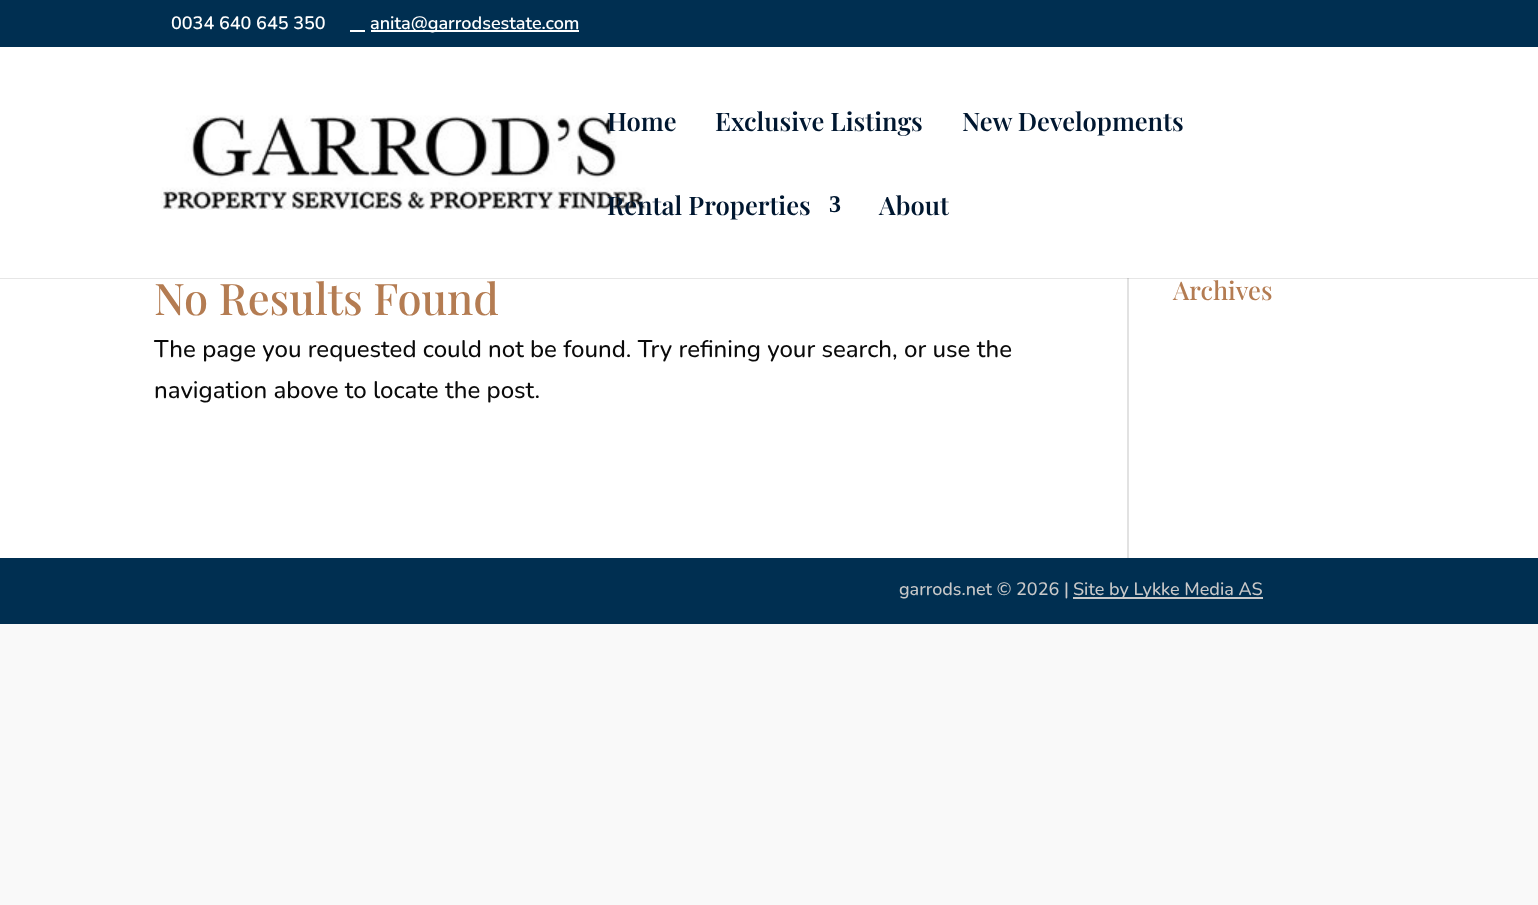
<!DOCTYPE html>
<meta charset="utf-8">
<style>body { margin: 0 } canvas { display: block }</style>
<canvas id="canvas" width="1538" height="905"></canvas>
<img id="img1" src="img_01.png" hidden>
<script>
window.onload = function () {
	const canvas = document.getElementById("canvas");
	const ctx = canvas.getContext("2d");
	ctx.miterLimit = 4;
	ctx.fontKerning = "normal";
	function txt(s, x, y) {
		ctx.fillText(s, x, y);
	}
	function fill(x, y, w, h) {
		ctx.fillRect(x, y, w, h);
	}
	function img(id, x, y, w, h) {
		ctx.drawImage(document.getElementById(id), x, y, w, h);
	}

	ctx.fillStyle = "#F9F9F9";
	fill(0, 0, 1538, 905);
	ctx.fillStyle = "#002F51";
	fill(0, 0, 1538, 47);
	ctx.fillStyle = "#FFFFFF";
	fill(350, 30, 15, 2);
	fill(371, 30, 208, 2);
	fill(0, 47, 1538, 231);
	img("img1", 160, 115, 487, 95);
	fill(0, 279, 1538, 279);
	ctx.fillStyle = "#E6E6E6";
	fill(0, 278, 1538, 1);
	ctx.fillStyle = "#E2E2E2";
	fill(1127, 279, 2, 279);
	ctx.fillStyle = "#CBCBCB";
	fill(1127, 278, 2, 1);
	ctx.fillStyle = "#002F51";
	fill(0, 558, 1538, 66);
	ctx.fillStyle = "#C9C9C9";
	fill(1073, 597, 190, 2);
	ctx.font = "600 18px Nunito";
	ctx.fillStyle = "#FFFFFF";
	txt("0034 640 645 350", 171, 29);
	txt("anita@garrodsestate.com", 370, 29);
	ctx.font = "600 25.5px Playfair Display";
	ctx.fillStyle = "#001730";
	txt("Home", 607, 131);
	txt("Exclusive Listings", 715, 131);
	txt("New Developments", 962, 131);
	txt("Rental Properties", 607, 215);
	ctx.font = "bold 24px Liberation Serif";
	txt("3", 829, 212);
	ctx.font = "600 25.5px Playfair Display";
	txt("About", 879, 215);
	ctx.font = "500 43.5px Playfair Display";
	ctx.fillStyle = "#B47C52";
	txt("No Results Found", 154, 315);
	ctx.font = "500 24px Nunito";
	ctx.fillStyle = "#0A0A0A";
	txt("The page you requested could not be found. Try refining your search, or use the", 154, 357);
	txt("navigation above to locate the post.", 154, 398);
	ctx.font = "500 25.5px Playfair Display";
	ctx.fillStyle = "#B47C52";
	txt("Archives", 1173, 300);
	ctx.font = "500 18px Nunito";
	ctx.fillStyle = "#C9C9C9";
	txt("garrods.net © 2026 |", 899, 595);
	txt("Site by Lykke Media AS", 1073, 595);
};
</script>
